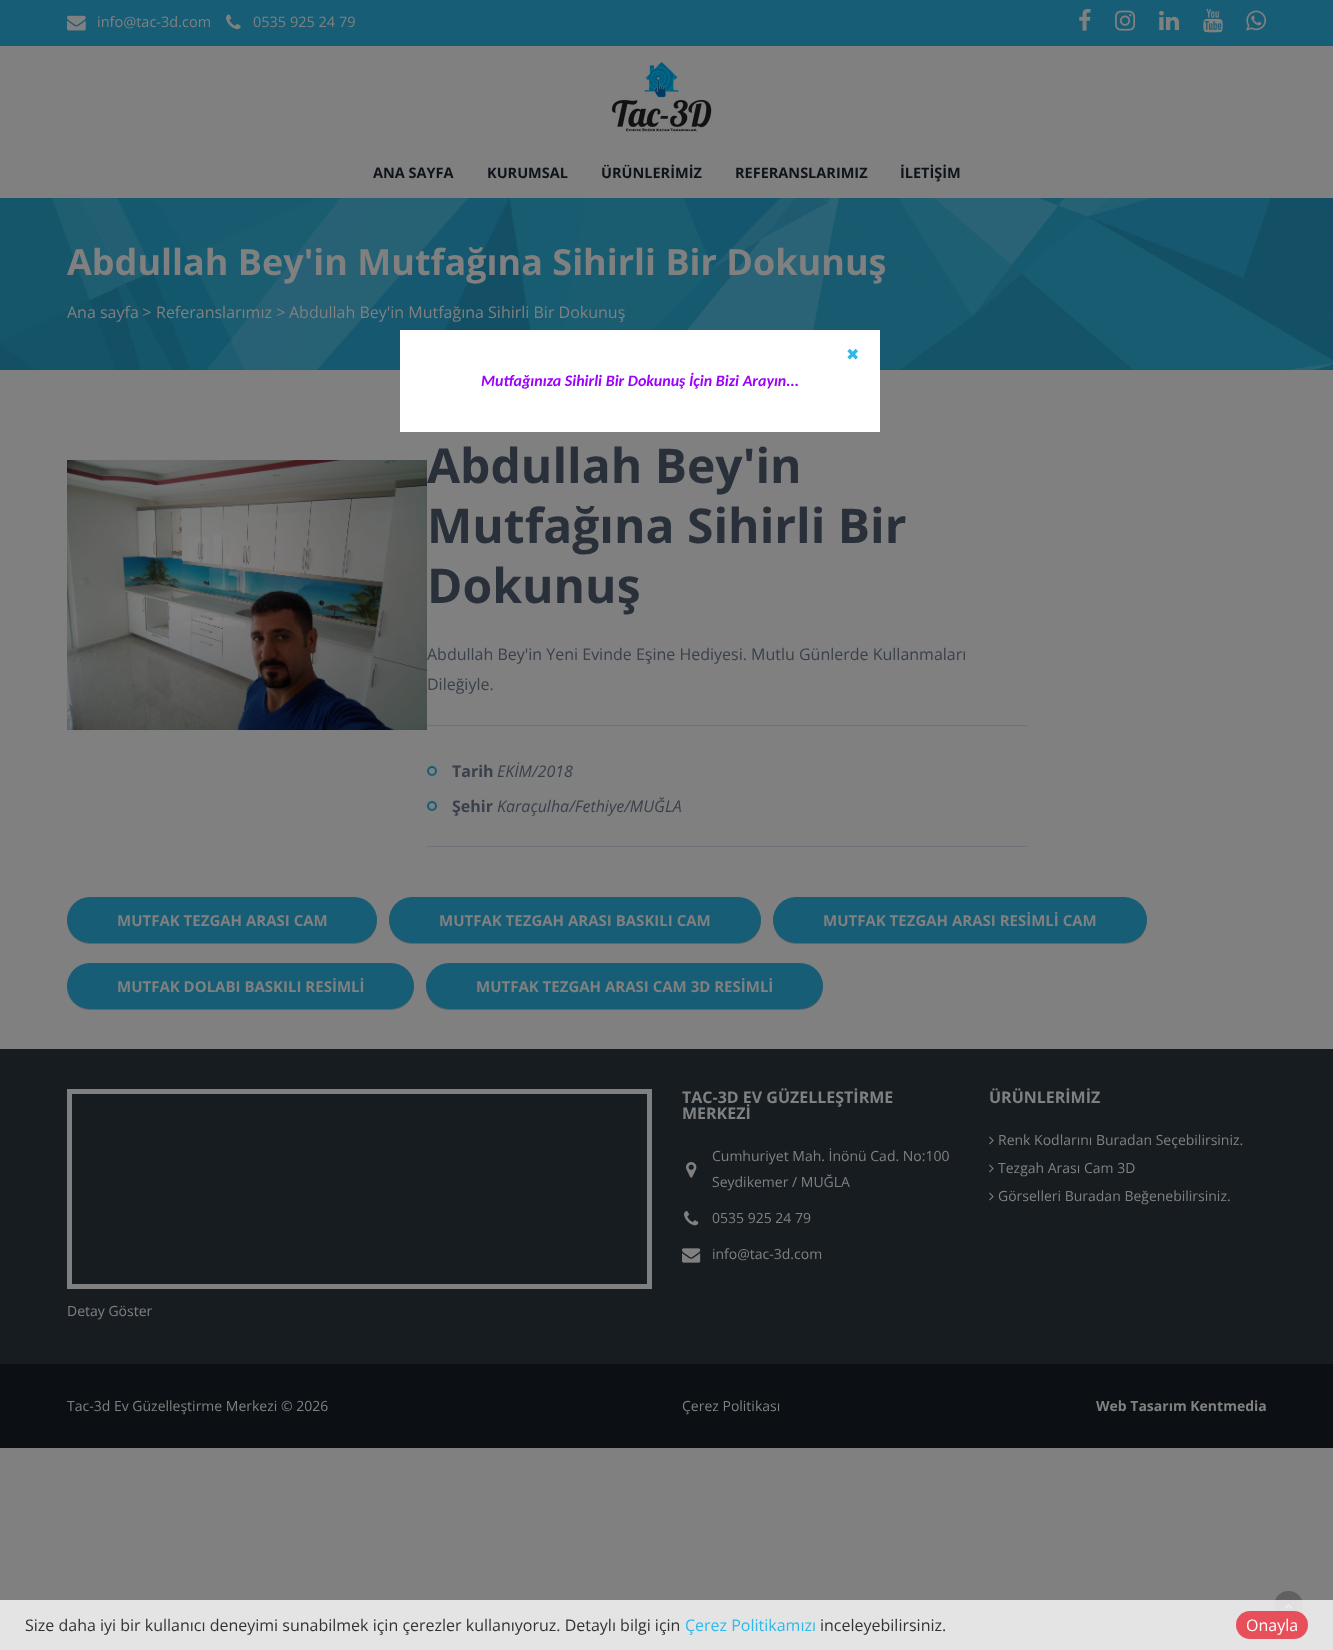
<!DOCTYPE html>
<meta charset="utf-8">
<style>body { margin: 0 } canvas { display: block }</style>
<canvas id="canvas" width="1333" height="1650"></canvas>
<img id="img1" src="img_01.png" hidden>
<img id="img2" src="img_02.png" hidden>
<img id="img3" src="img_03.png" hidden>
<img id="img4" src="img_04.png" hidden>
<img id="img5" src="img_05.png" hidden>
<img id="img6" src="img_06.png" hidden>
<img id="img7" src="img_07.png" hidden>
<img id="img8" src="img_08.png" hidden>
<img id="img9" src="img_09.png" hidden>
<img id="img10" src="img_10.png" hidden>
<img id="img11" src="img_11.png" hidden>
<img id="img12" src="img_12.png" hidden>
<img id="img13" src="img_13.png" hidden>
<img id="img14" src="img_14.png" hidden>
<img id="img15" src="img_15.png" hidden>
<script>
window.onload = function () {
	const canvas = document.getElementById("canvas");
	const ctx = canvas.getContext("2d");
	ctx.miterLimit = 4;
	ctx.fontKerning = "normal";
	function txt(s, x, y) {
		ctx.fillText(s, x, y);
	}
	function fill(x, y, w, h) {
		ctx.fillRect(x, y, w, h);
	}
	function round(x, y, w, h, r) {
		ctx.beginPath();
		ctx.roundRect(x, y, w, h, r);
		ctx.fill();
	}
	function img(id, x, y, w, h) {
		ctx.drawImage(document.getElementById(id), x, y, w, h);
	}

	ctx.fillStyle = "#808080";
	fill(0, 0, 1333, 1650);
	ctx.fillStyle = "#175D75";
	fill(0, 0, 1333, 46);
	img("img1", 67, 15, 19, 16);
	img("img2", 226, 14, 15, 16);
	img("img3", 1079, 8, 12, 23);
	img("img4", 1115, 10, 21, 21);
	img("img5", 1159, 10, 21, 21);
	img("img6", 1203, 8, 20, 25);
	img("img7", 1246, 10, 21, 21);
	img("img8", 611, 61, 101, 71);
	fill(0, 198, 1333, 172);
	img("img9", 0, 198, 1333, 172);
	img("img10", 67, 460, 360, 270);
	ctx.fillStyle = "#6E7278";
	fill(427, 725, 600, 1);
	fill(427, 846, 600, 1);
	ctx.beginPath();
	ctx.arc(432, 771, 4, 0, Math.PI * 2);
	ctx.strokeStyle = "#175D75";
	ctx.lineWidth = 2;
	ctx.stroke();
	ctx.beginPath();
	ctx.arc(432, 806, 4, 0, Math.PI * 2);
	ctx.stroke();
	ctx.fillStyle = "rgba(0, 0, 0, 0.21)";
	ctx.filter = "blur(0.5px)";
	ctx.beginPath();
	ctx.roundRect(67, 898, 310, 46, 23);
	ctx.fill();
	ctx.filter = "none";
	ctx.fillStyle = "#175D75";
	round(67, 897, 310, 46, 23);
	ctx.fillStyle = "rgba(0, 0, 0, 0.21)";
	ctx.filter = "blur(0.5px)";
	ctx.beginPath();
	ctx.roundRect(389, 898, 372, 46, 23);
	ctx.fill();
	ctx.filter = "none";
	ctx.fillStyle = "#175D75";
	round(389, 897, 372, 46, 23);
	ctx.fillStyle = "rgba(0, 0, 0, 0.21)";
	ctx.filter = "blur(0.5px)";
	ctx.beginPath();
	ctx.roundRect(773, 898, 374, 46, 23);
	ctx.fill();
	ctx.filter = "none";
	ctx.fillStyle = "#175D75";
	round(773, 897, 374, 46, 23);
	ctx.fillStyle = "rgba(0, 0, 0, 0.21)";
	ctx.filter = "blur(0.5px)";
	ctx.beginPath();
	ctx.roundRect(67, 964, 347, 46, 23);
	ctx.fill();
	ctx.filter = "none";
	ctx.fillStyle = "#175D75";
	round(67, 963, 347, 46, 23);
	ctx.fillStyle = "rgba(0, 0, 0, 0.21)";
	ctx.filter = "blur(0.5px)";
	ctx.beginPath();
	ctx.roundRect(426, 964, 397, 46, 23);
	ctx.fill();
	ctx.filter = "none";
	ctx.fillStyle = "#175D75";
	round(426, 963, 397, 46, 23);
	ctx.fillStyle = "#171C21";
	fill(0, 1049, 1333, 315);
	img("img11", 686, 1162, 11, 16);
	img("img12", 684, 1211, 15, 15);
	img("img13", 682, 1248, 19, 15);
	img("img14", 989, 1136, 5, 9);
	img("img14", 989, 1164, 5, 9);
	img("img14", 989, 1192, 5, 9);
	ctx.strokeStyle = "#808080";
	ctx.lineWidth = 5;
	ctx.strokeRect(69.5, 1091.5, 580, 195);
	ctx.fillStyle = "#0C0F14";
	fill(0, 1364, 1333, 84);
	ctx.fillStyle = "#606060";
	ctx.beginPath();
	ctx.arc(1288.5, 1605.5, 14.5, 0, Math.PI * 2);
	ctx.fill();
	img("img15", 1284, 1604, 9, 5);
	ctx.fillStyle = "#FFFFFF";
	fill(400, 330, 480, 102);
	ctx.fillStyle = "rgba(238, 238, 238, 0.9)";
	fill(0, 1600, 1333, 50);
	ctx.fillStyle = "#E7505A";
	round(1236, 1611, 72, 28, 14);
	ctx.font = "14.5px Open Sans";
	ctx.fillStyle = "#808080";
	txt("info@tac-3d.com", 97, 27);
	txt("0535 925 24 79", 253, 27);
	ctx.font = "bold 14.5px Open Sans";
	ctx.fillStyle = "#0E141A";
	txt("ANA SAYFA", 373, 178);
	txt("KURUMSAL", 487, 178);
	txt("ÜRÜNLERİMİZ", 601, 178);
	txt("REFERANSLARIMIZ", 735, 178);
	txt("İLETİŞİM", 900, 178);
	ctx.font = "bold 36px Open Sans";
	ctx.fillStyle = "#808080";
	txt("Abdullah Bey'in Mutfağına Sihirli Bir Dokunuş", 67, 275);
	ctx.font = "16px Open Sans";
	txt("Ana sayfa", 67, 318);
	ctx.font = "italic 16px Open Sans";
	txt(">", 142, 318);
	ctx.font = "16px Open Sans";
	txt("Referanslarımız", 156, 318);
	ctx.font = "italic 16px Open Sans";
	txt(">", 276, 318);
	ctx.font = "16px Open Sans";
	txt("Abdullah Bey'in Mutfağına Sihirli Bir Dokunuş", 289, 318);
	ctx.font = "bold 48px Open Sans";
	ctx.fillStyle = "#293039";
	txt("Abdullah Bey'in", 427, 483);
	txt("Mutfağına Sihirli Bir", 427, 543);
	txt("Dokunuş", 427, 603);
	ctx.font = "16px Open Sans";
	ctx.fillStyle = "#39404C";
	txt("Abdullah Bey'in Yeni Evinde Eşine Hediyesi. Mutlu Günlerde Kullanmaları", 427, 660);
	txt("Dileğiyle.", 427, 690);
	ctx.font = "bold 16px Open Sans";
	txt("Tarih", 452, 777);
	ctx.font = "italic 16px Open Sans";
	txt("EKİM/2018", 497, 777);
	ctx.font = "bold 16px Open Sans";
	txt("Şehir", 452, 812);
	ctx.font = "italic 16px Open Sans";
	txt("Karaçulha/Fethiye/MUĞLA", 497, 812);
	ctx.font = "bold 15px Open Sans";
	ctx.fillStyle = "#808080";
	txt("MUTFAK TEZGAH ARASI CAM", 117, 926);
	txt("MUTFAK TEZGAH ARASI BASKILI CAM", 439, 926);
	txt("MUTFAK TEZGAH ARASI RESİMLİ CAM", 823, 926);
	txt("MUTFAK DOLABI BASKILI RESİMLİ", 117, 992);
	txt("MUTFAK TEZGAH ARASI CAM 3D RESİMLİ", 476, 992);
	ctx.font = "bold 16px Open Sans";
	txt("TAC-3D EV GÜZELLEŞTİRME", 682, 1103);
	txt("MERKEZİ", 682, 1119);
	ctx.font = "14px Open Sans";
	txt("Cumhuriyet Mah. İnönü Cad. No:100", 712, 1161);
	txt("Seydikemer / MUĞLA", 712, 1187);
	txt("0535 925 24 79", 712, 1223);
	txt("info@tac-3d.com", 712, 1259);
	ctx.font = "bold 16px Open Sans";
	txt("ÜRÜNLERİMİZ", 989, 1103);
	ctx.font = "14px Open Sans";
	txt("Renk Kodlarını Buradan Seçebilirsiniz.", 998, 1145);
	txt("Tezgah Arası Cam 3D", 998, 1173);
	txt("Görselleri Buradan Beğenebilirsiniz.", 998, 1201);
	txt("Detay Göster", 67, 1316);
	txt("Tac-3d Ev Güzelleştirme Merkezi © 2026", 67, 1411);
	txt("Çerez Politikası", 682, 1411);
	ctx.font = "bold 14px Open Sans";
	txt("Web Tasarım Kentmedia", 1096, 1411);
	ctx.font = "16px DejaVu Sans";
	ctx.fillStyle = "#2EB9EA";
	txt("✖", 846, 360);
	ctx.font = "italic bold 16px Carlito";
	ctx.fillStyle = "#9C00FF";
	txt("Mutfağınıza Sihirli Bir Dokunuş İçin Bizi Arayın...", 481, 386);
	ctx.font = "16px Open Sans";
	ctx.fillStyle = "#333333";
	txt("Size daha iyi bir kullanıcı deneyimi sunabilmek için çerezler kullanıyoruz. Detaylı bilgi için", 25, 1631);
	ctx.fillStyle = "#2EB9EA";
	txt("Çerez Politikamızı", 685, 1631);
	ctx.fillStyle = "#333333";
	txt("inceleyebilirsiniz.", 820, 1631);
	ctx.fillStyle = "#FFFFFF";
	txt("Onayla", 1246, 1631);
};
</script>
